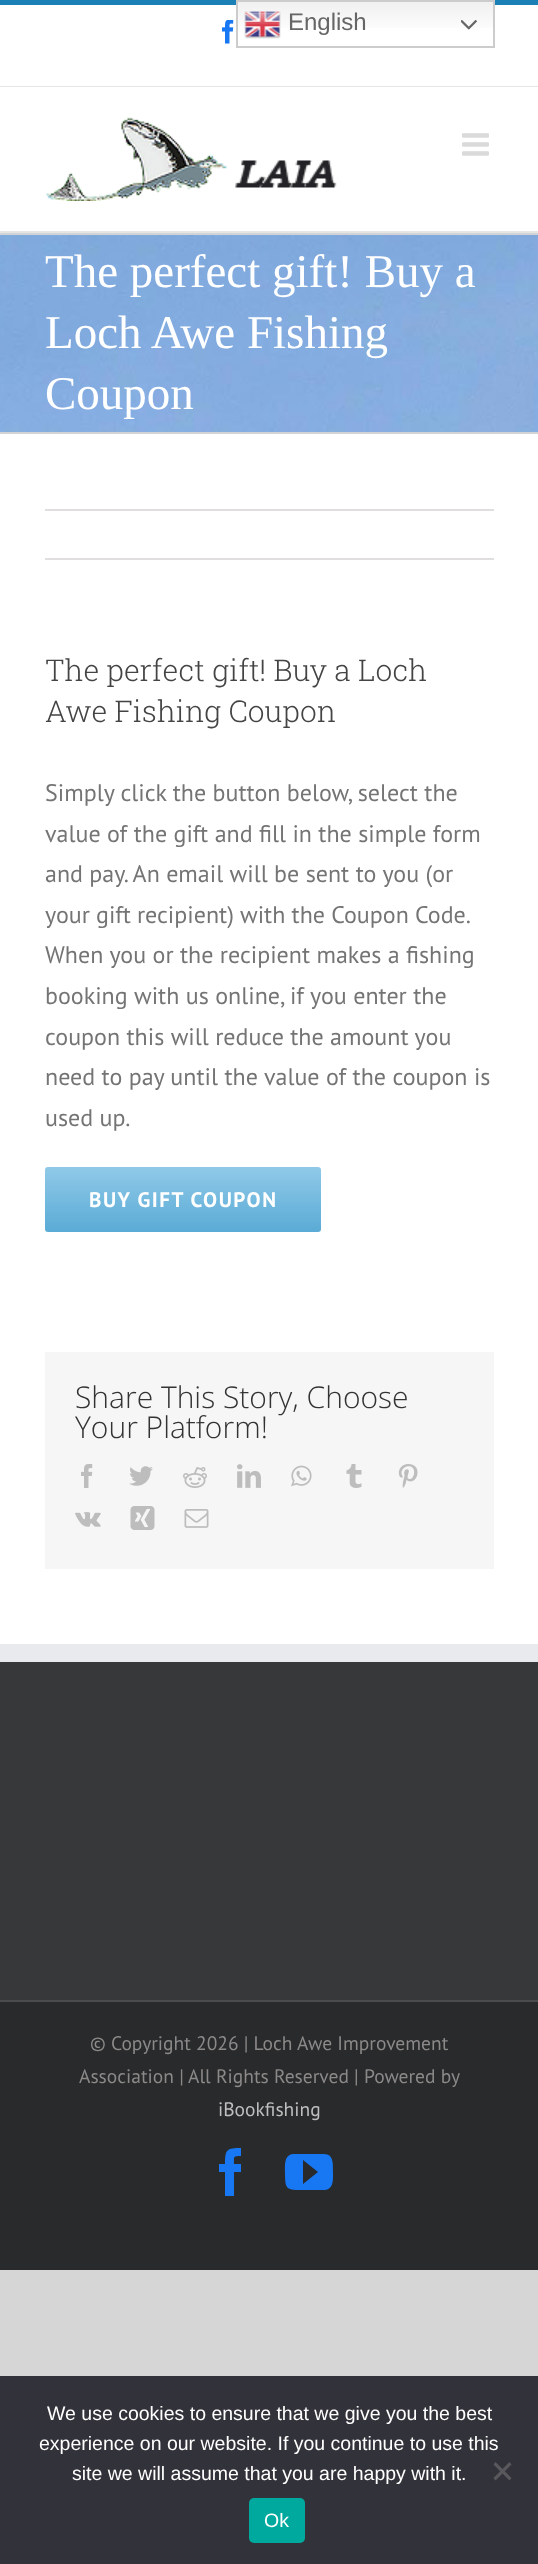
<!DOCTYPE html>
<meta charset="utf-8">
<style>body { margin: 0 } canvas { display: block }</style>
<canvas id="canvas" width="538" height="2564"></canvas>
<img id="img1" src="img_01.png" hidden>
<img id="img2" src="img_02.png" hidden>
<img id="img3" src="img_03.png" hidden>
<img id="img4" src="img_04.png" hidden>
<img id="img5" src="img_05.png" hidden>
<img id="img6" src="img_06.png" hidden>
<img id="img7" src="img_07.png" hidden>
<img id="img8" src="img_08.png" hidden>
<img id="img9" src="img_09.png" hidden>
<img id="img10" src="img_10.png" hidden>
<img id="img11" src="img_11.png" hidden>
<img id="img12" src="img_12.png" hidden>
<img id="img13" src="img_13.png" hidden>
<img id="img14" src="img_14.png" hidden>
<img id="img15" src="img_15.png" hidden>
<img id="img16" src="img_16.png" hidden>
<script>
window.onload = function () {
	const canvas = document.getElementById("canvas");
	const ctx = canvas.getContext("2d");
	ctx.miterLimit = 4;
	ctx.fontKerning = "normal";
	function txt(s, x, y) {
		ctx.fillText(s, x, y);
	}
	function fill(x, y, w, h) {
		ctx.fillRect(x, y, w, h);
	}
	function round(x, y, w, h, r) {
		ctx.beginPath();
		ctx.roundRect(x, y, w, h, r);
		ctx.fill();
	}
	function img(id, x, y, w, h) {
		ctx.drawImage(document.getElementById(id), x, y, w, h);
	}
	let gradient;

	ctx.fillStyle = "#D7D6D6";
	fill(0, 0, 538, 2564);
	ctx.fillStyle = "#FFFFFF";
	fill(0, 5, 538, 1639);
	ctx.fillStyle = "#1A80B6";
	fill(0, 0, 538, 5);
	gradient = ctx.createLinearGradient(365, 0, 365, 48);
	gradient.addColorStop(0, "#EFEFEF");
	gradient.addColorStop(0.7, "#FFFFFF");
	ctx.fillStyle = gradient;
	fill(238, 2, 255, 26);
	ctx.strokeStyle = "#CCCCCC";
	ctx.lineWidth = 2;
	ctx.strokeRect(237, 1, 257, 46);
	img("img1", 244, 11, 37, 28);
	img("img2", 461, 20, 16, 10);
	ctx.fillStyle = "#32323A";
	fill(0, 2376, 538, 188);
	ctx.fillStyle = "#59595D";
	ctx.beginPath();
	ctx.moveTo(509.5, 2462);
	ctx.lineTo(511.5, 2464.5);
	ctx.lineTo(495.5, 2480.5);
	ctx.lineTo(493.5, 2478);
	ctx.closePath();
	ctx.fill();
	ctx.beginPath();
	ctx.moveTo(493.5, 2464.5);
	ctx.lineTo(495.5, 2462);
	ctx.lineTo(511.5, 2478);
	ctx.lineTo(509.5, 2480.5);
	ctx.closePath();
	ctx.fill();
	ctx.fillStyle = "#00A99D";
	round(249, 2498, 56, 45, 5);
	ctx.fillStyle = "#E5E5E5";
	fill(0, 86, 538, 1);
	img("img3", 222, 20, 12, 24);
	fill(0, 231, 538, 2);
	img("img4", 46, 117, 291, 84);
	img("img5", 462, 133, 27, 23);
	img("img6", 0, 235, 538, 197);
	ctx.fillStyle = "#D2D3D4";
	fill(0, 233, 538, 2);
	fill(0, 432, 538, 2);
	ctx.fillStyle = "#E0DEDE";
	fill(45, 509, 449, 2);
	fill(45, 558, 449, 2);
	gradient = ctx.createLinearGradient(183, 1232, 183, 1167);
	gradient.addColorStop(0, "#5AABD6");
	gradient.addColorStop(1, "#90C9E8");
	ctx.fillStyle = gradient;
	round(45, 1167, 276, 65, 3);
	ctx.fillStyle = "#F6F6F6";
	fill(45, 1352, 449, 217);
	img("img7", 81, 1464, 12, 24);
	img("img8", 129, 1466, 24, 20);
	img("img9", 183, 1467, 24, 21);
	img("img10", 237, 1464, 24, 24);
	img("img11", 291, 1465, 21, 22);
	img("img12", 346, 1464, 16, 24);
	img("img13", 398, 1464, 20, 24);
	img("img14", 75, 1512, 26, 15);
	img("img15", 130, 1506, 25, 24);
	img("img16", 184, 1509, 25, 19);
	ctx.fillStyle = "#363839";
	fill(0, 1662, 538, 338);
	ctx.fillStyle = "#E9EAEE";
	fill(0, 1644, 538, 18);
	ctx.fillStyle = "#282A2B";
	fill(0, 2002, 538, 268);
	ctx.fillStyle = "#4B4C4D";
	fill(0, 2000, 538, 2);
	ctx.fillStyle = "#1877F2";
	ctx.beginPath();
	ctx.moveTo(234, 2196);
	ctx.lineTo(225, 2196);
	ctx.lineTo(225, 2172);
	ctx.lineTo(219, 2172);
	ctx.lineTo(219, 2164);
	ctx.lineTo(225, 2164);
	ctx.bezierCurveTo(225, 2149, 227, 2148, 241, 2148);
	ctx.lineTo(241, 2156);
	ctx.bezierCurveTo(233, 2156, 234, 2156, 234, 2164);
	ctx.lineTo(241, 2164);
	ctx.lineTo(241, 2172);
	ctx.lineTo(234, 2172);
	ctx.closePath();
	ctx.fill();
	ctx.beginPath();
	ctx.moveTo(324, 2154);
	ctx.lineTo(293, 2154);
	ctx.bezierCurveTo(284, 2155, 285, 2165, 285, 2172);
	ctx.bezierCurveTo(285, 2190, 286, 2190, 304, 2190);
	ctx.lineTo(325, 2190);
	ctx.bezierCurveTo(334, 2189, 333, 2179, 333, 2172);
	ctx.bezierCurveTo(333, 2165, 334, 2154, 324, 2154);
	ctx.closePath();
	ctx.moveTo(303, 2184);
	ctx.lineTo(303, 2160);
	ctx.lineTo(318, 2172);
	ctx.closePath();
	ctx.fill();
	ctx.font = "24px Liberation Sans";
	ctx.fillStyle = "#666666";
	txt("English", 288, 30);
	ctx.font = "19.5px Liberation Sans";
	ctx.fillStyle = "#FFFFFF";
	txt("We use cookies to ensure that we give you the best", 47, 2420);
	txt("experience on our website. If you continue to use this", 39, 2450);
	txt("site we will assume that you are happy with it.", 72, 2480);
	txt("Ok", 264, 2527);
	ctx.font = "47px Liberation Serif";
	txt("The perfect gift! Buy a", 45, 287);
	txt("Loch Awe Fishing", 45, 348);
	txt("Coupon", 45, 409);
	ctx.font = "300 30px Roboto Slab";
	ctx.fillStyle = "#444444";
	txt("The perfect gift! Buy a Loch", 45, 681);
	txt("Awe Fishing Coupon", 45, 722);
	ctx.font = "24px PT Sans";
	ctx.fillStyle = "#747474";
	txt("Simply click the button below, select the", 45, 801);
	txt("value of the gift and fill in the simple form", 45, 842);
	txt("and pay. An email will be sent to you (or", 45, 882);
	ctx.wordSpacing = "-0.25px";
	txt("your gift recipient) with the Coupon Code.", 45, 923);
	ctx.wordSpacing = "0px";
	txt("When you or the recipient makes a fishing", 45, 963);
	txt("booking with us online, if you enter the", 45, 1004);
	txt("coupon this will reduce the amount you", 45, 1045);
	txt("need to pay until the value of the coupon is", 45, 1085);
	txt("used up.", 45, 1126);
	ctx.letterSpacing = "1.5px";
	ctx.font = "bold 21px PT Sans";
	ctx.fillStyle = "#FFFFFF";
	txt("BUY GIFT COUPON", 89, 1207);
	ctx.letterSpacing = "0px";
	ctx.font = "300 30px Open Sans";
	ctx.fillStyle = "#333333";
	txt("Share This Story, Choose", 75, 1408);
	txt("Your Platform!", 75, 1438);
	ctx.font = "19.5px PT Sans";
	ctx.fillStyle = "#8C8989";
	txt("© Copyright 2026 | Loch Awe Improvement", 90, 2050);
	txt("Association |", 79, 2083);
	txt("All Rights Reserved | Powered by", 188, 2083);
	ctx.fillStyle = "#BFBFBF";
	txt("iBookfishing", 218, 2116);
};
</script>
